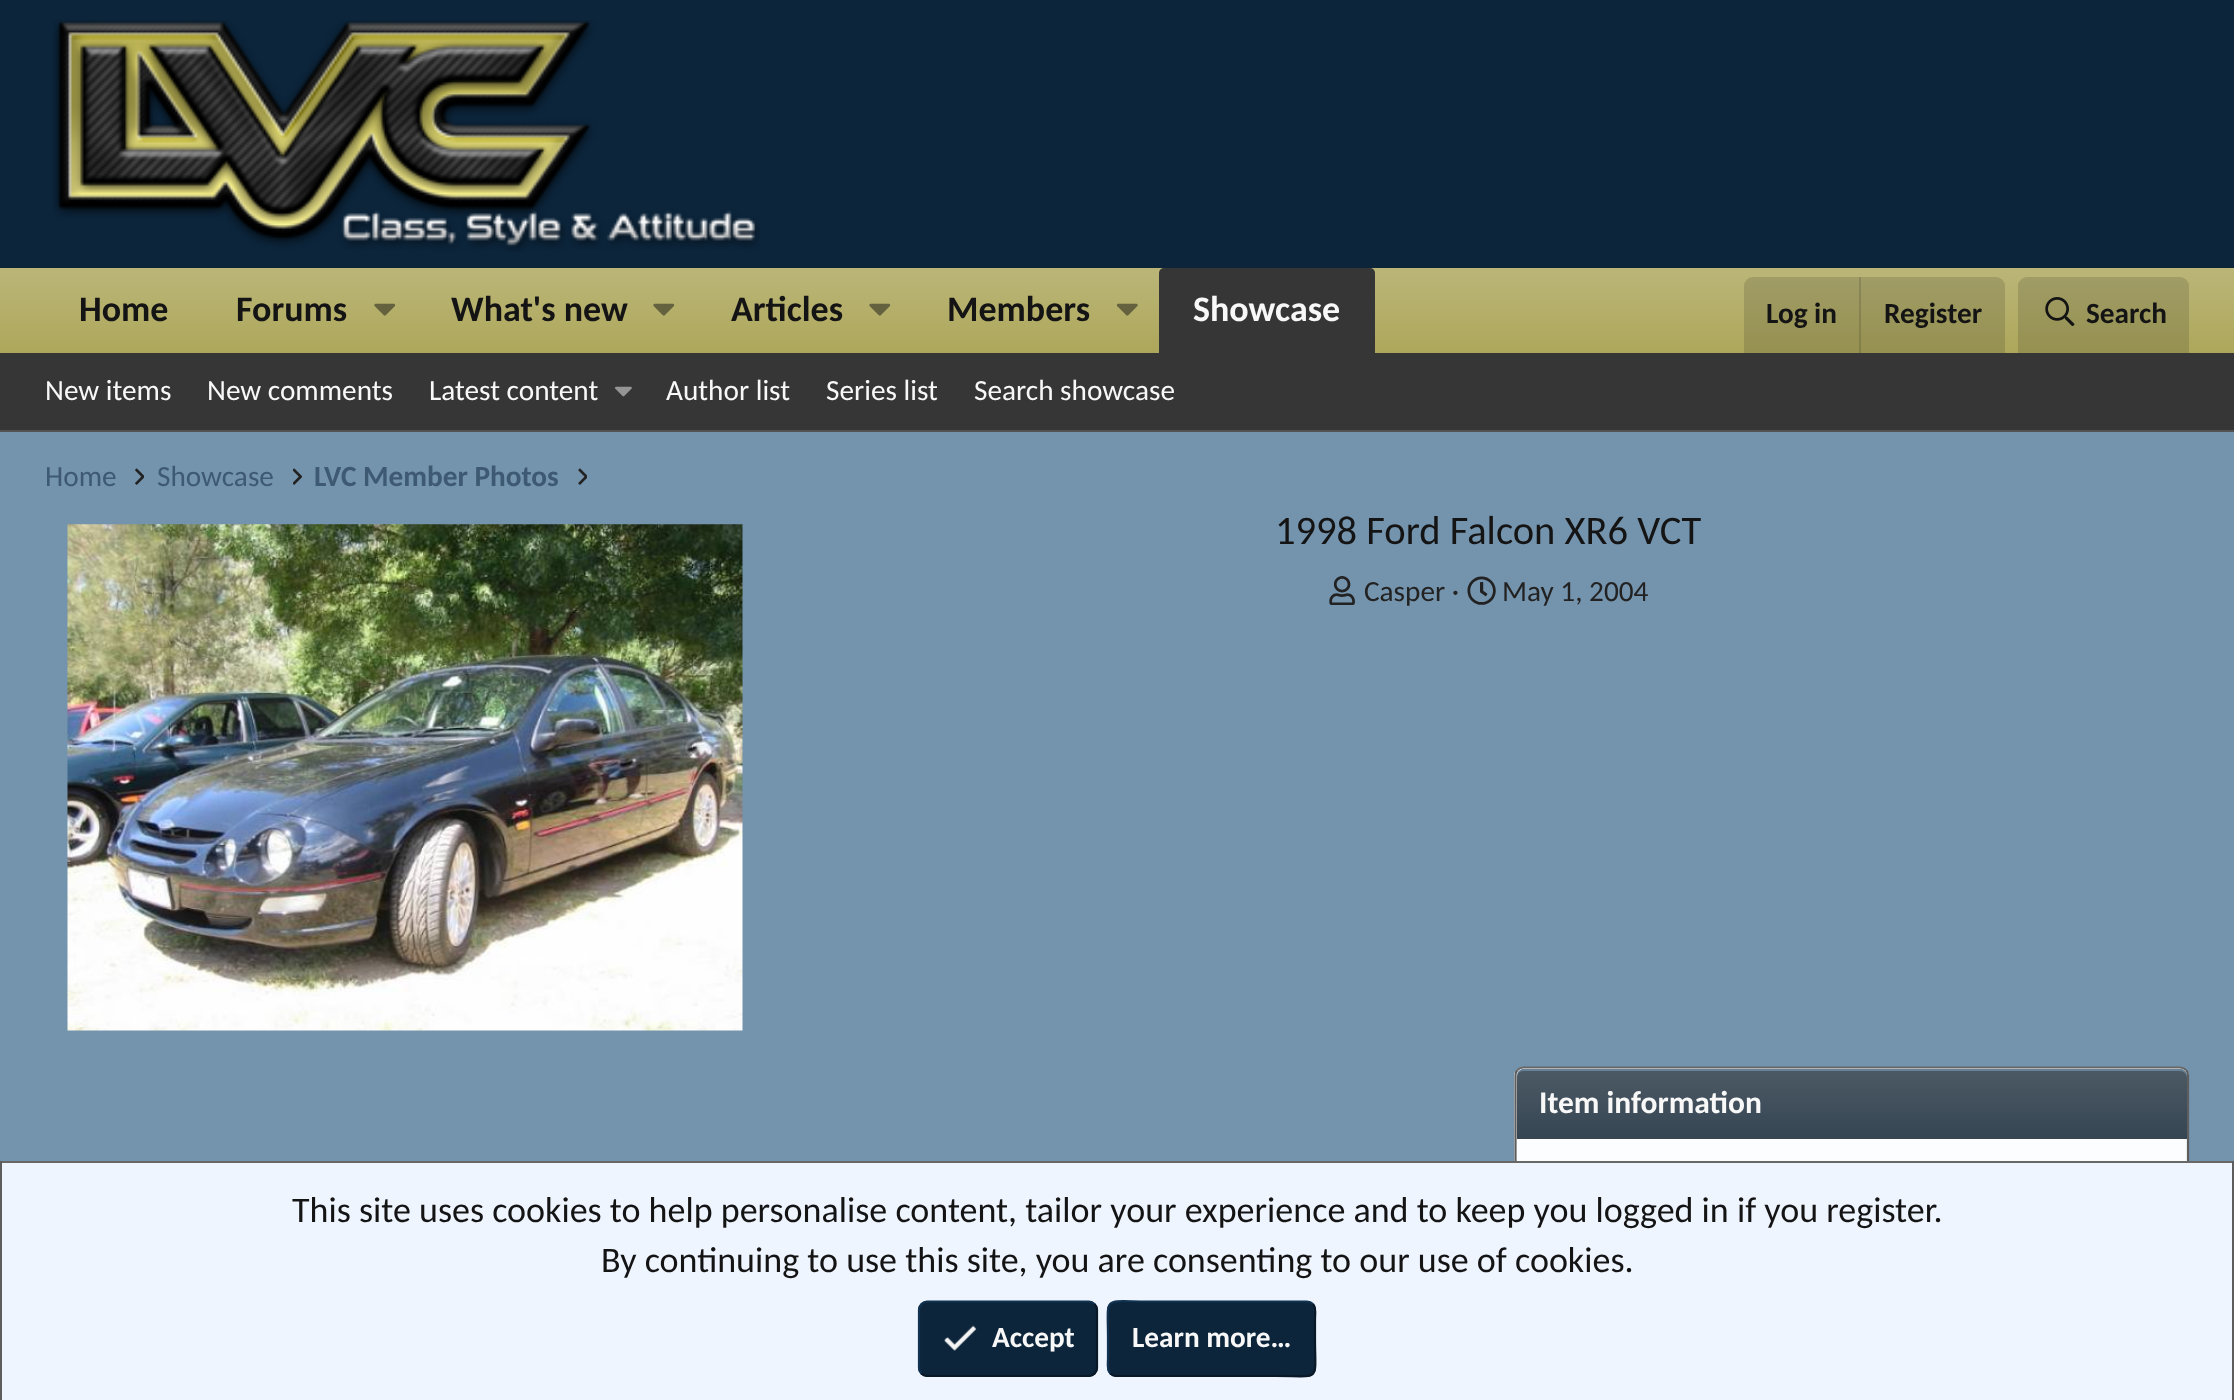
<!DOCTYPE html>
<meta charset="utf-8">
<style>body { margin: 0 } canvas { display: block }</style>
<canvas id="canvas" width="2234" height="1400"></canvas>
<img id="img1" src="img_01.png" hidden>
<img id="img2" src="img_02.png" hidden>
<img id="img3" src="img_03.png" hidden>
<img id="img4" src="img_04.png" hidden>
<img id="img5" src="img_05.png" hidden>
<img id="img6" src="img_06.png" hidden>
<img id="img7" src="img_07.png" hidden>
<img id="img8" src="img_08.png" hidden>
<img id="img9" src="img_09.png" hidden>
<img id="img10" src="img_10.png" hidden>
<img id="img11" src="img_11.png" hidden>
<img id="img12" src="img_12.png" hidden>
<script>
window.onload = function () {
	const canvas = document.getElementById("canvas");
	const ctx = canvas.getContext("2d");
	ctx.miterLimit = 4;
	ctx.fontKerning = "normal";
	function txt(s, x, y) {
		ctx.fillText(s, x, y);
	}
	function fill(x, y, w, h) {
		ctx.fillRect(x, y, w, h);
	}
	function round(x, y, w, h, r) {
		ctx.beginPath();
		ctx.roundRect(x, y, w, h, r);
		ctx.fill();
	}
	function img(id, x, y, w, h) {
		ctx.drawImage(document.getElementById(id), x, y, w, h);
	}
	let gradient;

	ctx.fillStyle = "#7493AD";
	fill(0, 0, 2234, 1400);
	ctx.fillStyle = "#0C253B";
	fill(0, 0, 2234, 268);
	img("img1", 53, 20, 707, 232);
	gradient = ctx.createLinearGradient(1117, 268, 1117, 353);
	gradient.addColorStop(0, "#BBB678");
	gradient.addColorStop(1, "#ADA75B");
	ctx.fillStyle = gradient;
	fill(0, 268, 2234, 85);
	img("img2", 374, 303, 22, 13);
	img("img2", 653, 303, 22, 13);
	img("img2", 869, 303, 22, 13);
	img("img3", 1116, 303, 22, 13);
	ctx.fillStyle = "#363636";
	ctx.beginPath();
	ctx.roundRect(1159, 268, 216, 85, [5, 5, 0, 0]);
	ctx.fill();
	ctx.fillStyle = "rgba(20, 20, 20, 0.15)";
	ctx.beginPath();
	ctx.roundRect(1744, 277, 261, 76, [9, 9, 0, 0]);
	ctx.fill();
	fill(1859, 277, 2, 76);
	ctx.beginPath();
	ctx.roundRect(2018, 277, 171, 76, [9, 9, 0, 0]);
	ctx.fill();
	img("img4", 2045, 297, 30, 29);
	ctx.fillStyle = "#363636";
	fill(0, 353, 2234, 77);
	ctx.fillStyle = "#535353";
	fill(0, 430, 2234, 2);
	img("img5", 615, 386, 17, 11);
	img("img6", 135, 468, 9, 17);
	img("img7", 293, 468, 9, 17);
	img("img8", 578, 468, 9, 17);
	img("img9", 67, 524, 676, 507);
	img("img10", 1329, 576, 26, 29);
	img("img11", 1467, 576, 29, 29);
	ctx.fillStyle = "#FCFDFF";
	round(1514, 1067, 675, 306, 9);
	ctx.beginPath();
	ctx.moveTo(1517.5, 1070);
	ctx.bezierCurveTo(1519, 1068.5, 1521, 1067.5, 1523, 1067.5);
	ctx.lineTo(2180, 1067.5);
	ctx.bezierCurveTo(2182.5, 1067.5, 2184.5, 1068.5, 2186, 1070);
	ctx.strokeStyle = "#676767";
	ctx.lineWidth = 2.2;
	ctx.stroke();
	ctx.beginPath();
	ctx.moveTo(2186, 1070);
	ctx.bezierCurveTo(2187.5, 1071.5, 2188, 1073.5, 2188, 1075.5);
	ctx.lineTo(2188, 1363.5);
	ctx.bezierCurveTo(2188, 1365.5, 2187.5, 1367.5, 2186, 1369);
	ctx.strokeStyle = "#5D5D5D";
	ctx.stroke();
	ctx.beginPath();
	ctx.moveTo(1517.5, 1369);
	ctx.bezierCurveTo(1516, 1367.5, 1515.5, 1365.5, 1515.5, 1363.5);
	ctx.lineTo(1515.5, 1075.5);
	ctx.bezierCurveTo(1515.5, 1073.5, 1516, 1071.5, 1517.5, 1070);
	ctx.stroke();
	gradient = ctx.createLinearGradient(1852, 1069, 1852, 1139);
	gradient.addColorStop(0, "#4C5A65");
	gradient.addColorStop(1, "#354552");
	ctx.fillStyle = gradient;
	ctx.beginPath();
	ctx.roundRect(1517, 1069, 670, 70, [7, 7, 0, 0]);
	ctx.fill();
	ctx.fillStyle = "#678297";
	ctx.beginPath();
	ctx.moveTo(1523, 1071);
	ctx.lineTo(2180, 1071);
	ctx.bezierCurveTo(2184, 1071, 2187, 1074, 2187, 1078);
	ctx.lineTo(2187, 1076);
	ctx.bezierCurveTo(2187, 1072, 2184, 1069, 2180, 1069);
	ctx.lineTo(1524, 1069);
	ctx.bezierCurveTo(1521, 1069, 1518, 1071, 1517, 1074);
	ctx.bezierCurveTo(1519, 1072, 1521, 1071, 1523, 1071);
	ctx.closePath();
	ctx.fill();
	ctx.fillStyle = "#EFF5FF";
	fill(2, 1163, 2230, 237);
	ctx.fillStyle = "#676767";
	fill(0, 1161, 2234, 2);
	ctx.fillStyle = "#5D5D5D";
	fill(2232, 1161, 2, 239);
	fill(0, 1161, 2, 239);
	ctx.fillStyle = "#0C253B";
	round(918, 1301, 180, 76, 9);
	ctx.beginPath();
	ctx.moveTo(1094.5, 1304);
	ctx.bezierCurveTo(1096, 1305.5, 1097, 1307.5, 1097, 1309.5);
	ctx.lineTo(1097, 1368);
	ctx.bezierCurveTo(1097, 1370, 1096, 1372, 1094.5, 1373.5);
	ctx.bezierCurveTo(1093, 1375, 1091, 1376, 1089, 1376);
	ctx.lineTo(927, 1376);
	ctx.bezierCurveTo(925, 1376, 923, 1375, 921.5, 1373.5);
	ctx.strokeStyle = "#081826";
	ctx.stroke();
	ctx.beginPath();
	ctx.moveTo(921.5, 1373.5);
	ctx.bezierCurveTo(920, 1372, 919, 1370, 919, 1368);
	ctx.lineTo(919, 1309.5);
	ctx.bezierCurveTo(919, 1307.5, 920, 1305.5, 921.5, 1304);
	ctx.bezierCurveTo(923, 1302.5, 925, 1301.5, 927, 1301.5);
	ctx.lineTo(1089, 1301.5);
	ctx.bezierCurveTo(1091, 1301.5, 1093, 1302.5, 1094.5, 1304);
	ctx.strokeStyle = "#103250";
	ctx.stroke();
	img("img12", 944, 1325, 33, 26);
	round(1107, 1301, 209, 76, 9);
	ctx.beginPath();
	ctx.moveTo(1313, 1304);
	ctx.bezierCurveTo(1316.5, 1307.5, 1315, 1315, 1315, 1319);
	ctx.lineTo(1315, 1339);
	ctx.bezierCurveTo(1315, 1383, 1322, 1376, 1275.5, 1376);
	ctx.lineTo(1116, 1376);
	ctx.bezierCurveTo(1114, 1376, 1112, 1375, 1110.5, 1373.5);
	ctx.strokeStyle = "#081826";
	ctx.stroke();
	ctx.beginPath();
	ctx.moveTo(1110.5, 1373.5);
	ctx.bezierCurveTo(1106.5, 1370, 1108, 1362.5, 1108, 1358);
	ctx.lineTo(1108, 1339);
	ctx.bezierCurveTo(1108, 1294.5, 1101.5, 1301.5, 1148, 1301.5);
	ctx.lineTo(1307, 1301.5);
	ctx.bezierCurveTo(1309.5, 1301.5, 1311.5, 1302.5, 1313, 1304);
	ctx.strokeStyle = "#103250";
	ctx.stroke();
	ctx.font = "bold 36px Carlito";
	ctx.fillStyle = "#141414";
	txt("Home", 79, 321);
	txt("Forums", 236, 321);
	txt("What's new", 451, 321);
	txt("Articles", 731, 321);
	txt("Members", 947, 321);
	ctx.fillStyle = "#F8F8F8";
	txt("Showcase", 1193, 321);
	ctx.font = "bold 29.25px Carlito";
	ctx.fillStyle = "#141414";
	txt("Log in", 1766, 323);
	txt("Register", 1884, 323);
	txt("Search", 2086, 323);
	ctx.font = "29.25px Carlito";
	ctx.fillStyle = "#F8F8F8";
	txt("New items", 45, 400);
	txt("New comments", 207, 400);
	txt("Latest content", 429, 400);
	txt("Author list", 666, 400);
	txt("Series list", 826, 400);
	txt("Search showcase", 974, 400);
	ctx.fillStyle = "#3E5A72";
	txt("Home", 45, 486);
	txt("Showcase", 157, 486);
	ctx.font = "bold 29.25px Carlito";
	txt("LVC Member Photos", 314, 486);
	ctx.font = "40.5px Carlito";
	ctx.fillStyle = "#141414";
	txt("1998 Ford Falcon XR6 VCT", 1275, 544);
	ctx.font = "29.25px Carlito";
	ctx.fillStyle = "#222222";
	txt("Casper ·", 1364, 601);
	txt("May 1, 2004", 1502, 601);
	ctx.font = "bold 31.5px Carlito";
	ctx.fillStyle = "#F8F8F8";
	txt("Item information", 1539, 1113);
	ctx.font = "36px Carlito";
	ctx.fillStyle = "#141414";
	txt("This site uses cookies to help personalise content, tailor your experience and to keep you logged in if you register.", 292, 1222);
	txt("By continuing to use this site, you are consenting to our use of cookies.", 601, 1272);
	ctx.font = "bold 29.25px Carlito";
	ctx.fillStyle = "#F8F8F8";
	txt("Accept", 992, 1347);
	txt("Learn more…", 1132, 1347);
};
</script>
